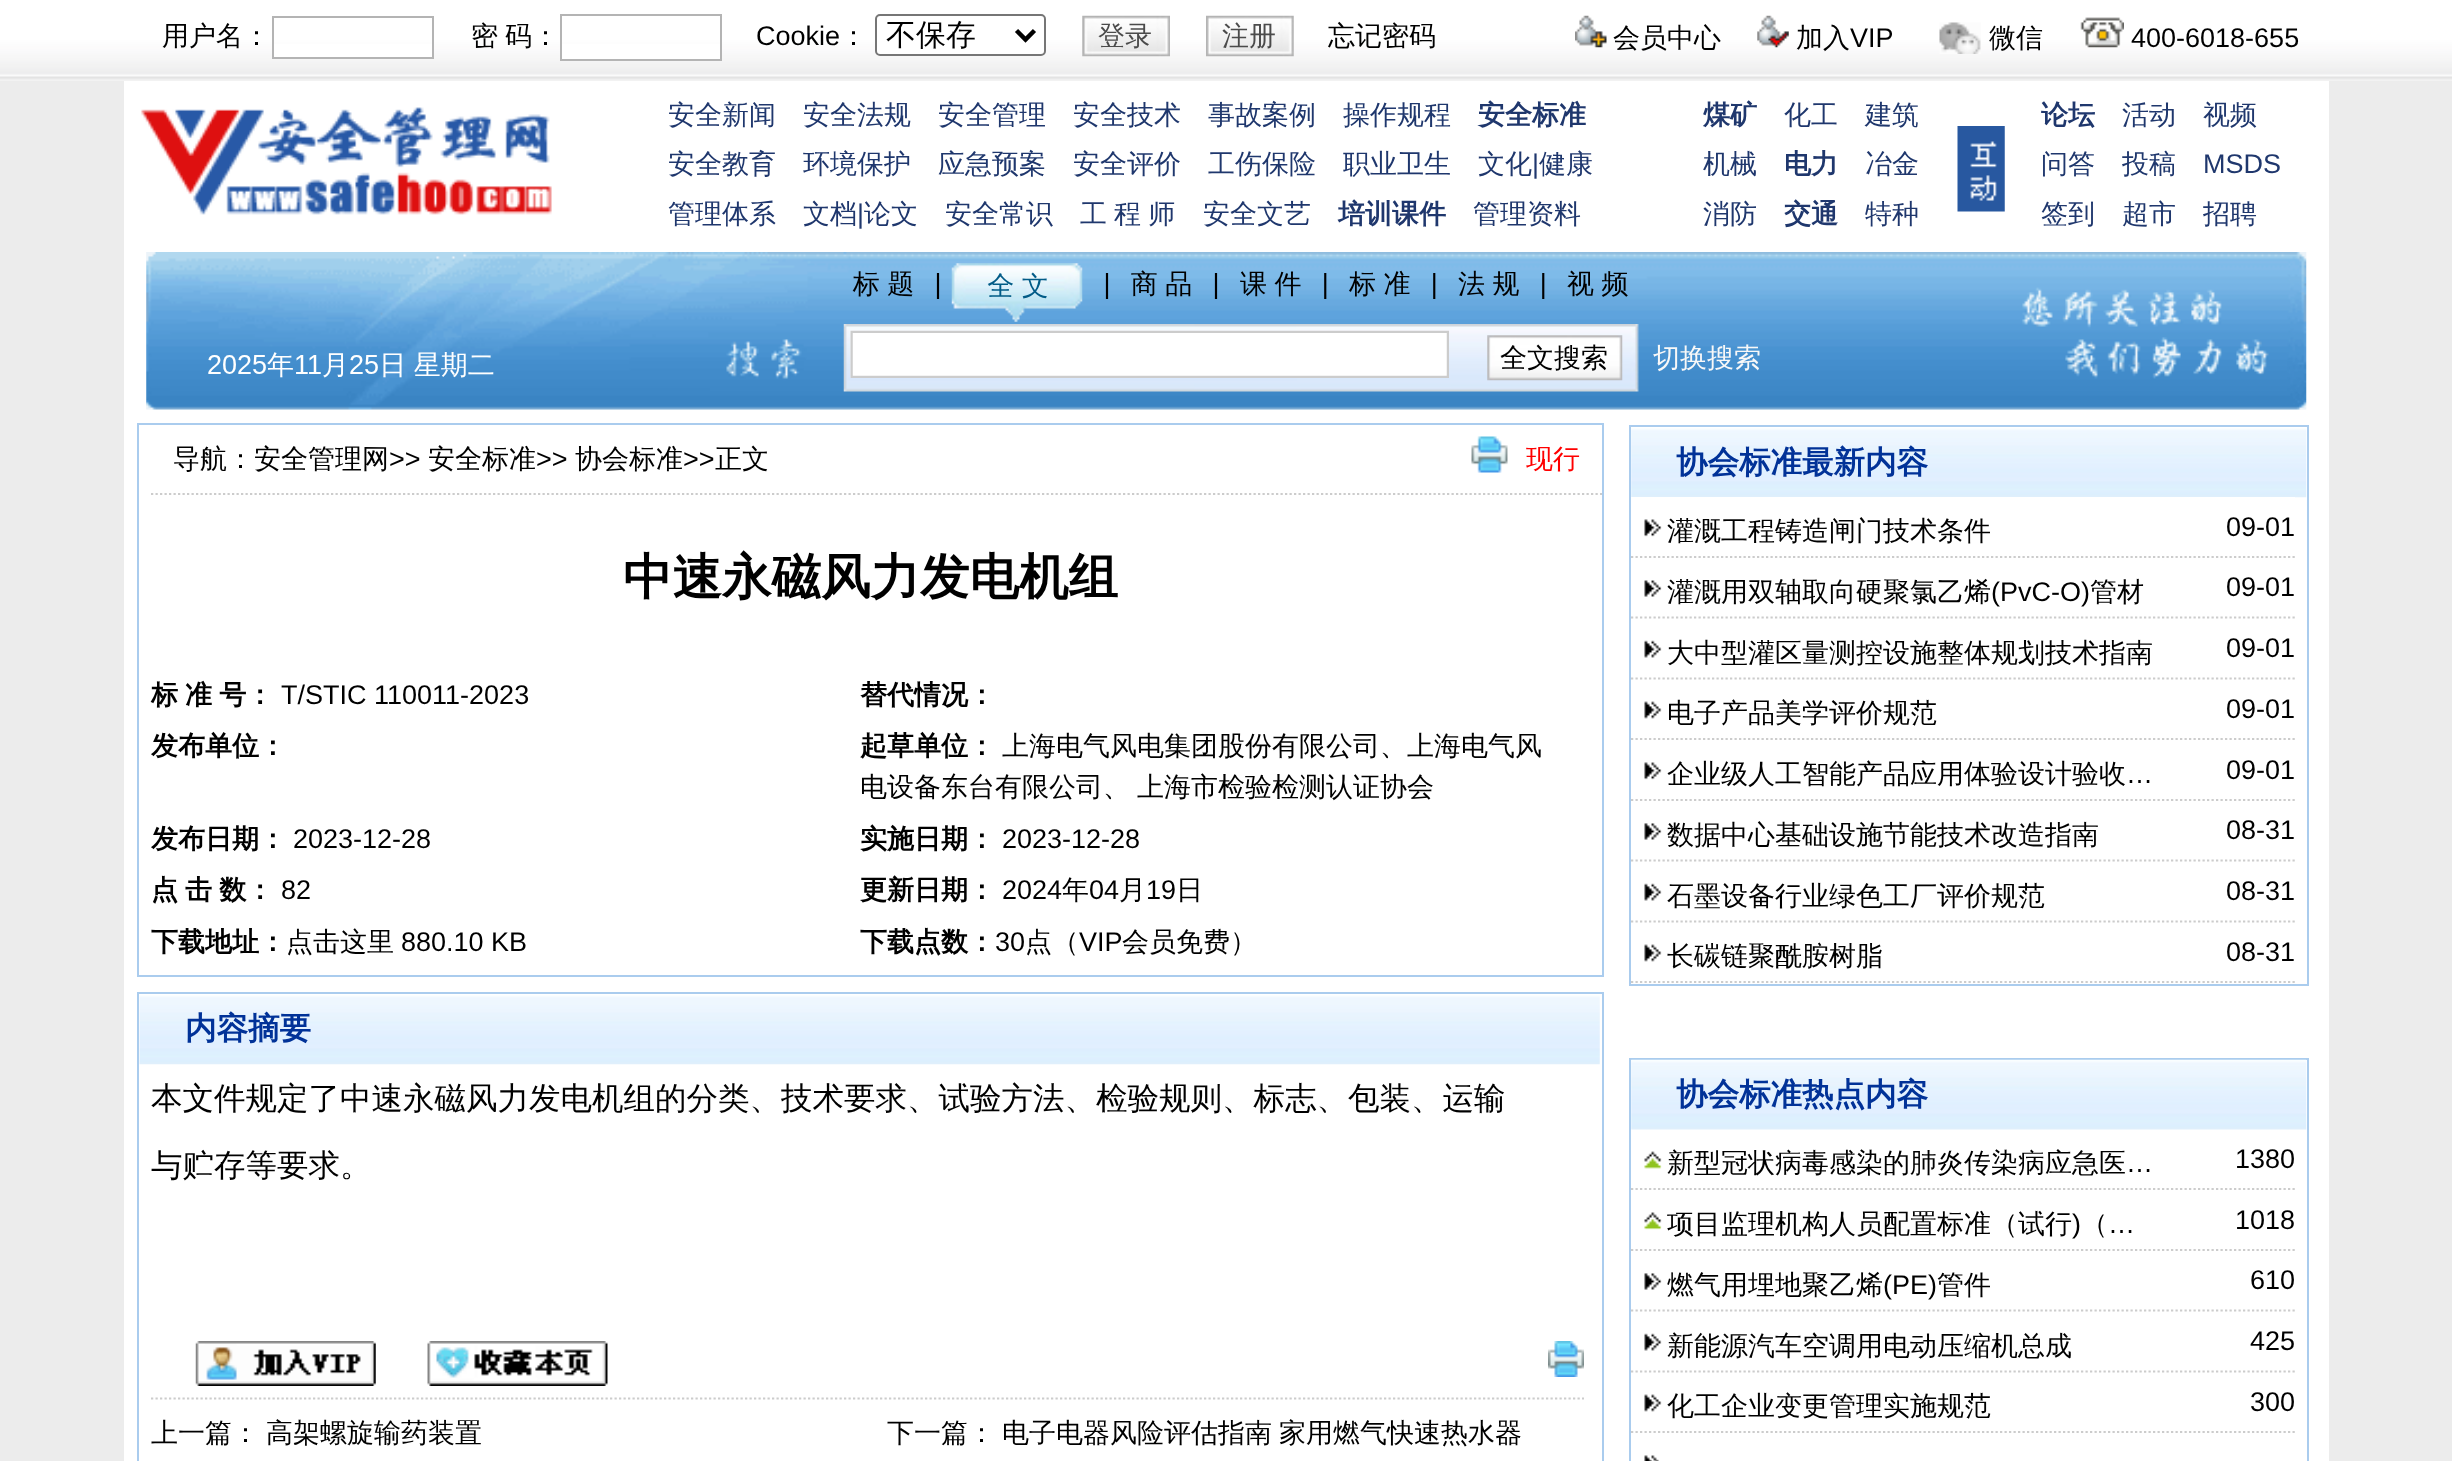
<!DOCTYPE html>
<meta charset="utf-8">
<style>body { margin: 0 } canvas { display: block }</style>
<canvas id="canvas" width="2452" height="1461"></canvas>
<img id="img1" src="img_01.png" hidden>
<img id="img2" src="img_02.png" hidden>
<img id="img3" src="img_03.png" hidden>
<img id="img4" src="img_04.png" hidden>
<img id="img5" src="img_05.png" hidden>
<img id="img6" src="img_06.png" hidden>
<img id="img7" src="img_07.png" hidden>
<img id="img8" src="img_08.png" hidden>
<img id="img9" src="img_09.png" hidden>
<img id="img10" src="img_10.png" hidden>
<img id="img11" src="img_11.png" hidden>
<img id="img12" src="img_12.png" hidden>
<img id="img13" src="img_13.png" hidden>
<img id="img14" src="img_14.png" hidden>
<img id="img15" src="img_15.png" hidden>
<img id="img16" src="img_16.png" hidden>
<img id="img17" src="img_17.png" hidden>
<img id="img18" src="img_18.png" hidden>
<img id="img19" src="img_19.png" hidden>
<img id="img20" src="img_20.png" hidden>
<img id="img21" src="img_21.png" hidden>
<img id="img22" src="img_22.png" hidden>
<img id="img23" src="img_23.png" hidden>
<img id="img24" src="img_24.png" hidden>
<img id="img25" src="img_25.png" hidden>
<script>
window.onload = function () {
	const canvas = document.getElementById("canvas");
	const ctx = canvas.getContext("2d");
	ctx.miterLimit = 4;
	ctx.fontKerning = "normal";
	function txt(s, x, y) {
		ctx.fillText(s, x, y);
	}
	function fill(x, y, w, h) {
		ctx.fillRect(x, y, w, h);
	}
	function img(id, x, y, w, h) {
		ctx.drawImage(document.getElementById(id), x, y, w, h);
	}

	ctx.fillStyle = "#ECECEC";
	fill(0, 0, 2452, 1461);
	img("img1", 0, 0, 2452, 81);
	ctx.fillStyle = "#FFFFFF";
	fill(274, 44, 158, 13);
	ctx.strokeStyle = "#B4B4B4";
	ctx.lineWidth = 2;
	ctx.strokeRect(273, 17, 160, 41);
	fill(562, 44, 158, 15);
	ctx.strokeRect(561, 15, 160, 45);
	ctx.beginPath();
	ctx.roundRect(876, 15, 169, 40, 4);
	ctx.fill();
	ctx.strokeStyle = "#767676";
	ctx.stroke();
	ctx.beginPath();
	ctx.moveTo(1016.5, 30.5);
	ctx.lineTo(1025.5, 39.5);
	ctx.lineTo(1034.5, 30.5);
	ctx.strokeStyle = "#000000";
	ctx.lineWidth = 4.5;
	ctx.stroke();
	img("img2", 1082, 15, 88, 42);
	img("img3", 1206, 15, 88, 42);
	img("img4", 1575, 15, 32, 33);
	img("img5", 1757, 15, 32, 33);
	img("img6", 1939, 22, 42, 32);
	img("img7", 2080, 17, 44, 31);
	fill(124, 81, 2205, 1380);
	img("img8", 141, 107, 411, 108);
	img("img9", 1957, 126, 48, 86);
	img("img10", 146, 252, 2161, 158);
	ctx.strokeStyle = "#AACCEE";
	ctx.lineWidth = 2;
	ctx.strokeRect(138, 424, 1465, 552);
	ctx.beginPath();
	ctx.moveTo(151, 494);
	ctx.lineTo(1602, 494);
	ctx.strokeStyle = "#CCCCCC";
	ctx.lineWidth = 2.2;
	ctx.setLineDash([2.25, 2.25]);
	ctx.stroke();
	img("img11", 1471, 436, 37, 37);
	ctx.strokeStyle = "#AACCEE";
	ctx.lineWidth = 2;
	ctx.setLineDash([]);
	ctx.strokeRect(138, 993, 1465, 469);
	img("img12", 139, 995, 1461, 70);
	img("img13", 195, 1341, 181, 45);
	img("img14", 427, 1341, 181, 45);
	img("img15", 1548, 1341, 36, 36);
	ctx.beginPath();
	ctx.moveTo(151, 1398.5);
	ctx.lineTo(1584, 1398.5);
	ctx.strokeStyle = "#CCCCCC";
	ctx.lineWidth = 2.2;
	ctx.setLineDash([2.25, 2.25]);
	ctx.stroke();
	ctx.strokeStyle = "#AACCEE";
	ctx.lineWidth = 2;
	ctx.setLineDash([]);
	ctx.strokeRect(1630, 426, 678, 559);
	img("img16", 1631, 428, 676, 70);
	fill(1631, 497, 664, 1);
	ctx.beginPath();
	ctx.moveTo(1631, 557);
	ctx.lineTo(2295, 557);
	ctx.strokeStyle = "#CCCCCC";
	ctx.lineWidth = 2.2;
	ctx.setLineDash([2.25, 2.25]);
	ctx.stroke();
	img("img17", 1644, 519, 18, 18);
	fill(1631, 558, 664, 1);
	ctx.beginPath();
	ctx.moveTo(1631, 617.5);
	ctx.lineTo(2295, 617.5);
	ctx.stroke();
	img("img18", 1644, 580, 18, 17);
	ctx.beginPath();
	ctx.moveTo(1631, 678.5);
	ctx.lineTo(2295, 678.5);
	ctx.stroke();
	img("img19", 1644, 640, 18, 18);
	ctx.beginPath();
	ctx.moveTo(1631, 739);
	ctx.lineTo(2295, 739);
	ctx.stroke();
	img("img20", 1644, 701, 18, 18);
	fill(1631, 740, 664, 1);
	ctx.beginPath();
	ctx.moveTo(1631, 800);
	ctx.lineTo(2295, 800);
	ctx.stroke();
	img("img17", 1644, 762, 18, 18);
	fill(1631, 801, 664, 1);
	ctx.beginPath();
	ctx.moveTo(1631, 860.5);
	ctx.lineTo(2295, 860.5);
	ctx.stroke();
	img("img21", 1644, 823, 18, 17);
	ctx.beginPath();
	ctx.moveTo(1631, 921.5);
	ctx.lineTo(2295, 921.5);
	ctx.stroke();
	img("img19", 1644, 883, 18, 18);
	ctx.beginPath();
	ctx.moveTo(1631, 982);
	ctx.lineTo(2295, 982);
	ctx.stroke();
	img("img20", 1644, 944, 18, 18);
	ctx.strokeStyle = "#AACCEE";
	ctx.lineWidth = 2;
	ctx.setLineDash([]);
	ctx.strokeRect(1630, 1059, 678, 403);
	img("img22", 1631, 1059, 676, 71);
	ctx.beginPath();
	ctx.moveTo(1631, 1189);
	ctx.lineTo(2295, 1189);
	ctx.strokeStyle = "#CCCCCC";
	ctx.lineWidth = 2.2;
	ctx.setLineDash([2.25, 2.25]);
	ctx.stroke();
	img("img23", 1644, 1151, 18, 18);
	fill(1631, 1190, 664, 1);
	ctx.beginPath();
	ctx.moveTo(1631, 1250);
	ctx.lineTo(2295, 1250);
	ctx.stroke();
	img("img24", 1644, 1212, 18, 18);
	fill(1631, 1251, 664, 1);
	ctx.beginPath();
	ctx.moveTo(1631, 1310.5);
	ctx.lineTo(2295, 1310.5);
	ctx.stroke();
	img("img21", 1644, 1273, 18, 17);
	ctx.beginPath();
	ctx.moveTo(1631, 1371.5);
	ctx.lineTo(2295, 1371.5);
	ctx.stroke();
	img("img19", 1644, 1333, 18, 18);
	ctx.beginPath();
	ctx.moveTo(1631, 1432);
	ctx.lineTo(2295, 1432);
	ctx.stroke();
	img("img20", 1644, 1394, 18, 18);
	fill(1631, 1433, 664, 1);
	img("img25", 1644, 1455, 15, 6);
	ctx.font = "500 27px WenQuanYi Zen Hei";
	ctx.fillStyle = "#000000";
	txt("用户名：", 162, 45);
	ctx.wordSpacing = "-1px";
	txt("密 码：", 471, 45);
	ctx.wordSpacing = "0px";
	ctx.font = "27px Liberation Sans";
	txt("Cookie", 756, 45);
	ctx.font = "500 27px WenQuanYi Zen Hei";
	txt("：", 840, 45);
	ctx.font = "500 30px WenQuanYi Zen Hei";
	txt("不保存", 886, 45);
	ctx.font = "500 27px WenQuanYi Zen Hei";
	ctx.fillStyle = "#4B4B4B";
	txt("登录", 1098, 45);
	txt("注册", 1222, 45);
	ctx.fillStyle = "#000000";
	txt("忘记密码", 1328, 45);
	txt("会员中心", 1613, 47);
	txt("加入", 1796, 47);
	ctx.font = "27px Liberation Sans";
	txt("VIP", 1850, 47);
	ctx.font = "500 27px WenQuanYi Zen Hei";
	txt("微信", 1989, 47);
	ctx.font = "27px Liberation Sans";
	txt("400-6018-655", 2131, 47);
	ctx.font = "500 27px WenQuanYi Zen Hei";
	ctx.fillStyle = "#1F376D";
	txt("安全新闻", 668, 124);
	txt("安全法规", 803, 124);
	txt("安全管理", 938, 124);
	txt("安全技术", 1073, 124);
	txt("事故案例", 1208, 124);
	txt("操作规程", 1343, 124);
	ctx.font = "bold 27px WenQuanYi Zen Hei";
	txt("安全标准", 1478, 124);
	ctx.font = "500 27px WenQuanYi Zen Hei";
	txt("安全教育", 668, 173);
	txt("环境保护", 803, 173);
	txt("应急预案", 938, 173);
	txt("安全评价", 1073, 173);
	txt("工伤保险", 1208, 173);
	txt("职业卫生", 1343, 173);
	txt("文化", 1478, 173);
	ctx.font = "27px Liberation Sans";
	txt("|", 1532, 173);
	ctx.font = "500 27px WenQuanYi Zen Hei";
	txt("健康", 1539, 173);
	txt("管理体系", 668, 223);
	txt("文档", 803, 223);
	ctx.font = "27px Liberation Sans";
	txt("|", 857, 223);
	ctx.font = "500 27px WenQuanYi Zen Hei";
	txt("论文", 864, 223);
	txt("安全常识", 945, 223);
	ctx.wordSpacing = "-1px";
	txt("工 程 师", 1080, 223);
	ctx.wordSpacing = "0px";
	txt("安全文艺", 1203, 223);
	ctx.font = "bold 27px WenQuanYi Zen Hei";
	txt("培训课件", 1338, 223);
	ctx.font = "500 27px WenQuanYi Zen Hei";
	txt("管理资料", 1473, 223);
	ctx.font = "bold 27px WenQuanYi Zen Hei";
	txt("煤矿", 1703, 124);
	ctx.font = "500 27px WenQuanYi Zen Hei";
	txt("化工", 1784, 124);
	txt("建筑", 1865, 124);
	txt("机械", 1703, 173);
	ctx.font = "bold 27px WenQuanYi Zen Hei";
	txt("电力", 1784, 173);
	ctx.font = "500 27px WenQuanYi Zen Hei";
	txt("冶金", 1865, 173);
	txt("消防", 1703, 223);
	ctx.font = "bold 27px WenQuanYi Zen Hei";
	txt("交通", 1784, 223);
	ctx.font = "500 27px WenQuanYi Zen Hei";
	txt("特种", 1865, 223);
	ctx.font = "bold 27px WenQuanYi Zen Hei";
	txt("论坛", 2041, 124);
	ctx.font = "500 27px WenQuanYi Zen Hei";
	txt("活动", 2122, 124);
	txt("视频", 2203, 124);
	txt("问答", 2041, 173);
	txt("投稿", 2122, 173);
	ctx.font = "27px Liberation Sans";
	txt("MSDS", 2203, 173);
	ctx.font = "500 27px WenQuanYi Zen Hei";
	txt("签到", 2041, 223);
	txt("超市", 2122, 223);
	txt("招聘", 2203, 223);
	ctx.fillStyle = "#000000";
	txt("导航：安全管理网", 173, 468);
	ctx.font = "27px Liberation Sans";
	txt(">>", 389, 468);
	ctx.font = "500 27px WenQuanYi Zen Hei";
	txt("安全标准", 428, 468);
	ctx.font = "27px Liberation Sans";
	txt(">>", 536, 468);
	ctx.font = "500 27px WenQuanYi Zen Hei";
	txt("协会标准", 575, 468);
	ctx.font = "27px Liberation Sans";
	txt(">>", 683, 468);
	ctx.font = "500 27px WenQuanYi Zen Hei";
	txt("正文", 715, 468);
	ctx.fillStyle = "#FF0000";
	txt("现行", 1526, 468);
	ctx.font = "bold 49.5px WenQuanYi Zen Hei";
	ctx.fillStyle = "#000000";
	txt("中速永磁风力发电机组", 623, 594);
	ctx.wordSpacing = "-1px";
	ctx.font = "bold 27px WenQuanYi Zen Hei";
	txt("标 准 号：", 151, 704);
	ctx.wordSpacing = "0px";
	ctx.font = "27px Liberation Sans";
	txt("T/STIC 110011-2023", 281, 704);
	ctx.font = "bold 27px WenQuanYi Zen Hei";
	txt("替代情况：", 860, 704);
	txt("发布单位：", 151, 755);
	txt("起草单位：", 860, 755);
	ctx.font = "500 27px WenQuanYi Zen Hei";
	txt("上海电气风电集团股份有限公司、上海电气风", 1002, 755);
	ctx.wordSpacing = "-1px";
	txt("电设备东台有限公司、 上海市检验检测认证协会", 860, 796);
	ctx.wordSpacing = "0px";
	ctx.font = "bold 27px WenQuanYi Zen Hei";
	txt("发布日期：", 151, 848);
	ctx.font = "27px Liberation Sans";
	txt("2023-12-28", 293, 848);
	ctx.font = "bold 27px WenQuanYi Zen Hei";
	txt("实施日期：", 860, 848);
	ctx.font = "27px Liberation Sans";
	txt("2023-12-28", 1002, 848);
	ctx.wordSpacing = "-1px";
	ctx.font = "bold 27px WenQuanYi Zen Hei";
	txt("点 击 数：", 151, 899);
	ctx.wordSpacing = "0px";
	ctx.font = "27px Liberation Sans";
	txt("82", 281, 899);
	ctx.font = "bold 27px WenQuanYi Zen Hei";
	txt("更新日期：", 860, 899);
	ctx.font = "27px Liberation Sans";
	txt("2024", 1002, 899);
	ctx.font = "500 27px WenQuanYi Zen Hei";
	txt("年", 1062, 899);
	ctx.font = "27px Liberation Sans";
	txt("04", 1089, 899);
	ctx.font = "500 27px WenQuanYi Zen Hei";
	txt("月", 1119, 899);
	ctx.font = "27px Liberation Sans";
	txt("19", 1146, 899);
	ctx.font = "500 27px WenQuanYi Zen Hei";
	txt("日", 1176, 899);
	ctx.font = "bold 27px WenQuanYi Zen Hei";
	txt("下载地址：", 151, 951);
	ctx.font = "500 27px WenQuanYi Zen Hei";
	txt("点击这里", 286, 951);
	ctx.font = "27px Liberation Sans";
	txt("880.10 KB", 401, 951);
	ctx.font = "bold 27px WenQuanYi Zen Hei";
	txt("下载点数：", 860, 951);
	ctx.font = "27px Liberation Sans";
	txt("30", 995, 951);
	ctx.font = "500 27px WenQuanYi Zen Hei";
	txt("点（", 1025, 951);
	ctx.font = "27px Liberation Sans";
	txt("VIP", 1079, 951);
	ctx.font = "500 27px WenQuanYi Zen Hei";
	txt("会员免费）", 1122, 951);
	ctx.font = "bold 31.5px WenQuanYi Zen Hei";
	ctx.fillStyle = "#013298";
	txt("内容摘要", 185, 1039);
	ctx.font = "500 31.5px WenQuanYi Zen Hei";
	ctx.fillStyle = "#000000";
	txt("本文件规定了中速永磁风力发电机组的分类、技术要求、试验方法、检验规则、标志、包装、运输", 151, 1109);
	txt("与贮存等要求。", 151, 1176);
	ctx.font = "500 27px WenQuanYi Zen Hei";
	txt("上一篇：", 151, 1442);
	txt("高架螺旋输药装置", 266, 1442);
	txt("下一篇：", 887, 1442);
	ctx.wordSpacing = "-1px";
	txt("电子电器风险评估指南 家用燃气快速热水器", 1002, 1442);
	ctx.wordSpacing = "0px";
	ctx.font = "bold 31.5px WenQuanYi Zen Hei";
	ctx.fillStyle = "#013298";
	txt("协会标准最新内容", 1676, 473);
	ctx.font = "500 27px WenQuanYi Zen Hei";
	ctx.fillStyle = "#000000";
	txt("灌溉工程铸造闸门技术条件", 1667, 540);
	ctx.font = "27px Liberation Sans";
	txt("09-01", 2226, 536);
	ctx.font = "500 27px WenQuanYi Zen Hei";
	txt("灌溉用双轴取向硬聚氯乙烯", 1667, 601);
	ctx.font = "27px Liberation Sans";
	txt("(PvC-O)", 1991, 601);
	ctx.font = "500 27px WenQuanYi Zen Hei";
	txt("管材", 2090, 601);
	ctx.font = "27px Liberation Sans";
	txt("09-01", 2226, 596);
	ctx.font = "500 27px WenQuanYi Zen Hei";
	txt("大中型灌区量测控设施整体规划技术指南", 1667, 662);
	ctx.font = "27px Liberation Sans";
	txt("09-01", 2226, 657);
	ctx.font = "500 27px WenQuanYi Zen Hei";
	txt("电子产品美学评价规范", 1667, 722);
	ctx.font = "27px Liberation Sans";
	txt("09-01", 2226, 718);
	ctx.font = "500 27px WenQuanYi Zen Hei";
	txt("企业级人工智能产品应用体验设计验收", 1667, 783);
	ctx.font = "27px Liberation Sans";
	txt("09-01", 2226, 779);
	txt("…", 2126, 783);
	ctx.font = "500 27px WenQuanYi Zen Hei";
	txt("数据中心基础设施节能技术改造指南", 1667, 844);
	ctx.font = "27px Liberation Sans";
	txt("08-31", 2226, 839);
	ctx.font = "500 27px WenQuanYi Zen Hei";
	txt("石墨设备行业绿色工厂评价规范", 1667, 905);
	ctx.font = "27px Liberation Sans";
	txt("08-31", 2226, 900);
	ctx.font = "500 27px WenQuanYi Zen Hei";
	txt("长碳链聚酰胺树脂", 1667, 965);
	ctx.font = "27px Liberation Sans";
	txt("08-31", 2226, 961);
	ctx.font = "bold 31.5px WenQuanYi Zen Hei";
	ctx.fillStyle = "#013298";
	txt("协会标准热点内容", 1676, 1105);
	ctx.font = "500 27px WenQuanYi Zen Hei";
	ctx.fillStyle = "#000000";
	txt("新型冠状病毒感染的肺炎传染病应急医", 1667, 1172);
	ctx.font = "27px Liberation Sans";
	txt("1380", 2235, 1168);
	txt("…", 2126, 1172);
	ctx.font = "500 27px WenQuanYi Zen Hei";
	txt("项目监理机构人员配置标准（试行", 1667, 1233);
	ctx.font = "27px Liberation Sans";
	txt(")", 2072, 1233);
	ctx.font = "500 27px WenQuanYi Zen Hei";
	txt("（", 2081, 1233);
	ctx.font = "27px Liberation Sans";
	txt("…", 2108, 1233);
	txt("1018", 2235, 1229);
	ctx.font = "500 27px WenQuanYi Zen Hei";
	txt("燃气用埋地聚乙烯", 1667, 1294);
	ctx.font = "27px Liberation Sans";
	txt("(PE)", 1883, 1294);
	ctx.font = "500 27px WenQuanYi Zen Hei";
	txt("管件", 1937, 1294);
	ctx.font = "27px Liberation Sans";
	txt("610", 2250, 1289);
	ctx.font = "500 27px WenQuanYi Zen Hei";
	txt("新能源汽车空调用电动压缩机总成", 1667, 1355);
	ctx.font = "27px Liberation Sans";
	txt("425", 2250, 1350);
	ctx.font = "500 27px WenQuanYi Zen Hei";
	txt("化工企业变更管理实施规范", 1667, 1415);
	ctx.font = "27px Liberation Sans";
	txt("300", 2250, 1411);
};
</script>
